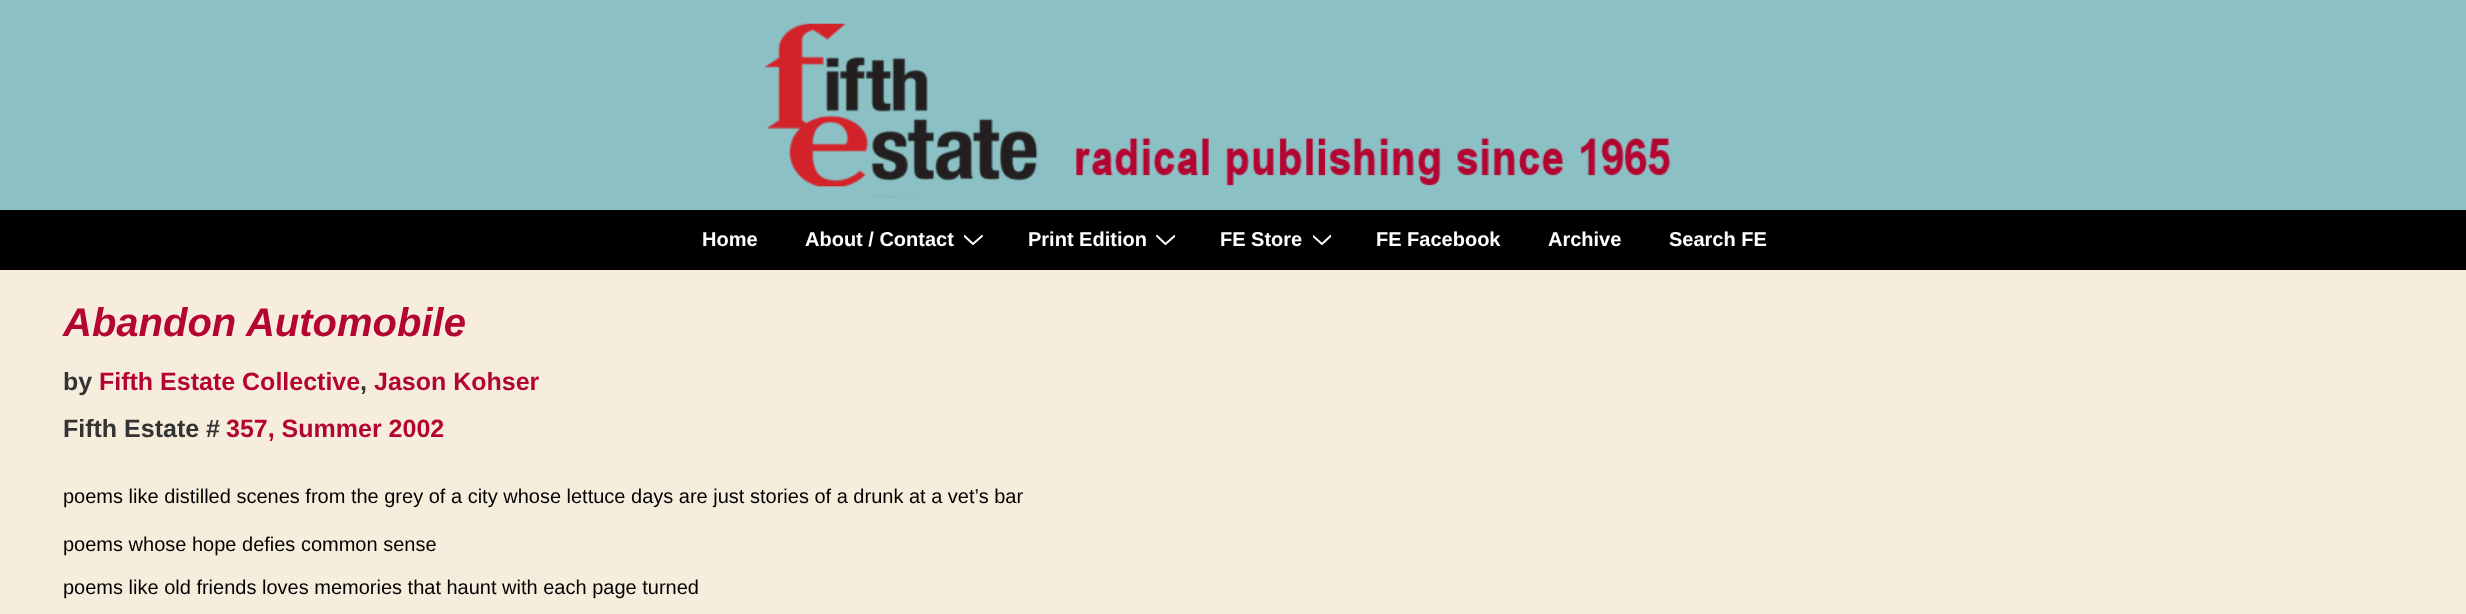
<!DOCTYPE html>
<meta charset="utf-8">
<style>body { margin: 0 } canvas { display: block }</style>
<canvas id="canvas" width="2466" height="614"></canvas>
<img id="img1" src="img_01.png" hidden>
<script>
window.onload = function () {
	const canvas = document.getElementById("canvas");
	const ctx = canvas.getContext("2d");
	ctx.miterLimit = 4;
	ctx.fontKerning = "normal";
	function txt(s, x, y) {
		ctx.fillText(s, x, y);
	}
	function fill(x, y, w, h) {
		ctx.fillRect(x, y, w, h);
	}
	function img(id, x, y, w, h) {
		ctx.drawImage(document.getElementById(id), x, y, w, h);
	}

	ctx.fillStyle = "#8BC0C4";
	fill(0, 0, 2466, 614);
	img("img1", 765, 23, 906, 175);
	ctx.fillStyle = "#000000";
	fill(0, 210, 2466, 60);
	ctx.save();
	ctx.beginPath();
	ctx.rect(964, 235, 19, 10);
	ctx.clip();
	ctx.beginPath();
	ctx.moveTo(964.5, 236);
	ctx.lineTo(973, 244);
	ctx.lineTo(982, 236);
	ctx.strokeStyle = "#FFFFFF";
	ctx.lineWidth = 2;
	ctx.lineCap = "round";
	ctx.stroke();
	ctx.restore();
	ctx.save();
	ctx.beginPath();
	ctx.rect(1156, 235, 19, 10);
	ctx.clip();
	ctx.beginPath();
	ctx.moveTo(1157, 236);
	ctx.lineTo(1165.5, 244);
	ctx.lineTo(1174.5, 236);
	ctx.strokeStyle = "#FFFFFF";
	ctx.lineWidth = 2;
	ctx.lineCap = "round";
	ctx.stroke();
	ctx.restore();
	ctx.save();
	ctx.beginPath();
	ctx.rect(1313, 235, 18, 10);
	ctx.clip();
	ctx.beginPath();
	ctx.moveTo(1313, 236);
	ctx.lineTo(1322, 244);
	ctx.lineTo(1330.5, 236);
	ctx.strokeStyle = "#FFFFFF";
	ctx.lineWidth = 2;
	ctx.lineCap = "round";
	ctx.stroke();
	ctx.restore();
	ctx.fillStyle = "#F7EDDC";
	fill(0, 270, 2466, 344);
	ctx.font = "bold 20px Liberation Sans";
	ctx.fillStyle = "#FFFFFF";
	txt("Home", 702, 246);
	txt("About / Contact", 805, 246);
	txt("Print Edition", 1028, 246);
	txt("FE Store", 1220, 246);
	txt("FE Facebook", 1376, 246);
	txt("Archive", 1548, 246);
	txt("Search FE", 1669, 246);
	ctx.font = "italic bold 40px Liberation Sans";
	ctx.fillStyle = "#B40431";
	txt("Abandon Automobile", 63, 336);
	ctx.font = "bold 25px Liberation Sans";
	ctx.fillStyle = "#333333";
	txt("by", 63, 390);
	ctx.fillStyle = "#B40431";
	txt("Fifth Estate Collective", 99, 390);
	ctx.fillStyle = "#333333";
	txt(",", 360, 390);
	ctx.fillStyle = "#B40431";
	txt("Jason Kohser", 374, 390);
	ctx.fillStyle = "#333333";
	txt("Fifth Estate #", 63, 437);
	ctx.fillStyle = "#B40431";
	txt("357, Summer 2002", 226, 437);
	ctx.font = "20px Liberation Sans";
	ctx.fillStyle = "#000000";
	txt("poems like distilled scenes from the grey of a city whose lettuce days are just stories of a drunk at a vet’s bar", 63, 503);
	txt("poems whose hope defies common sense", 63, 551);
	txt("poems like old friends loves memories that haunt with each page turned", 63, 594);
};
</script>
